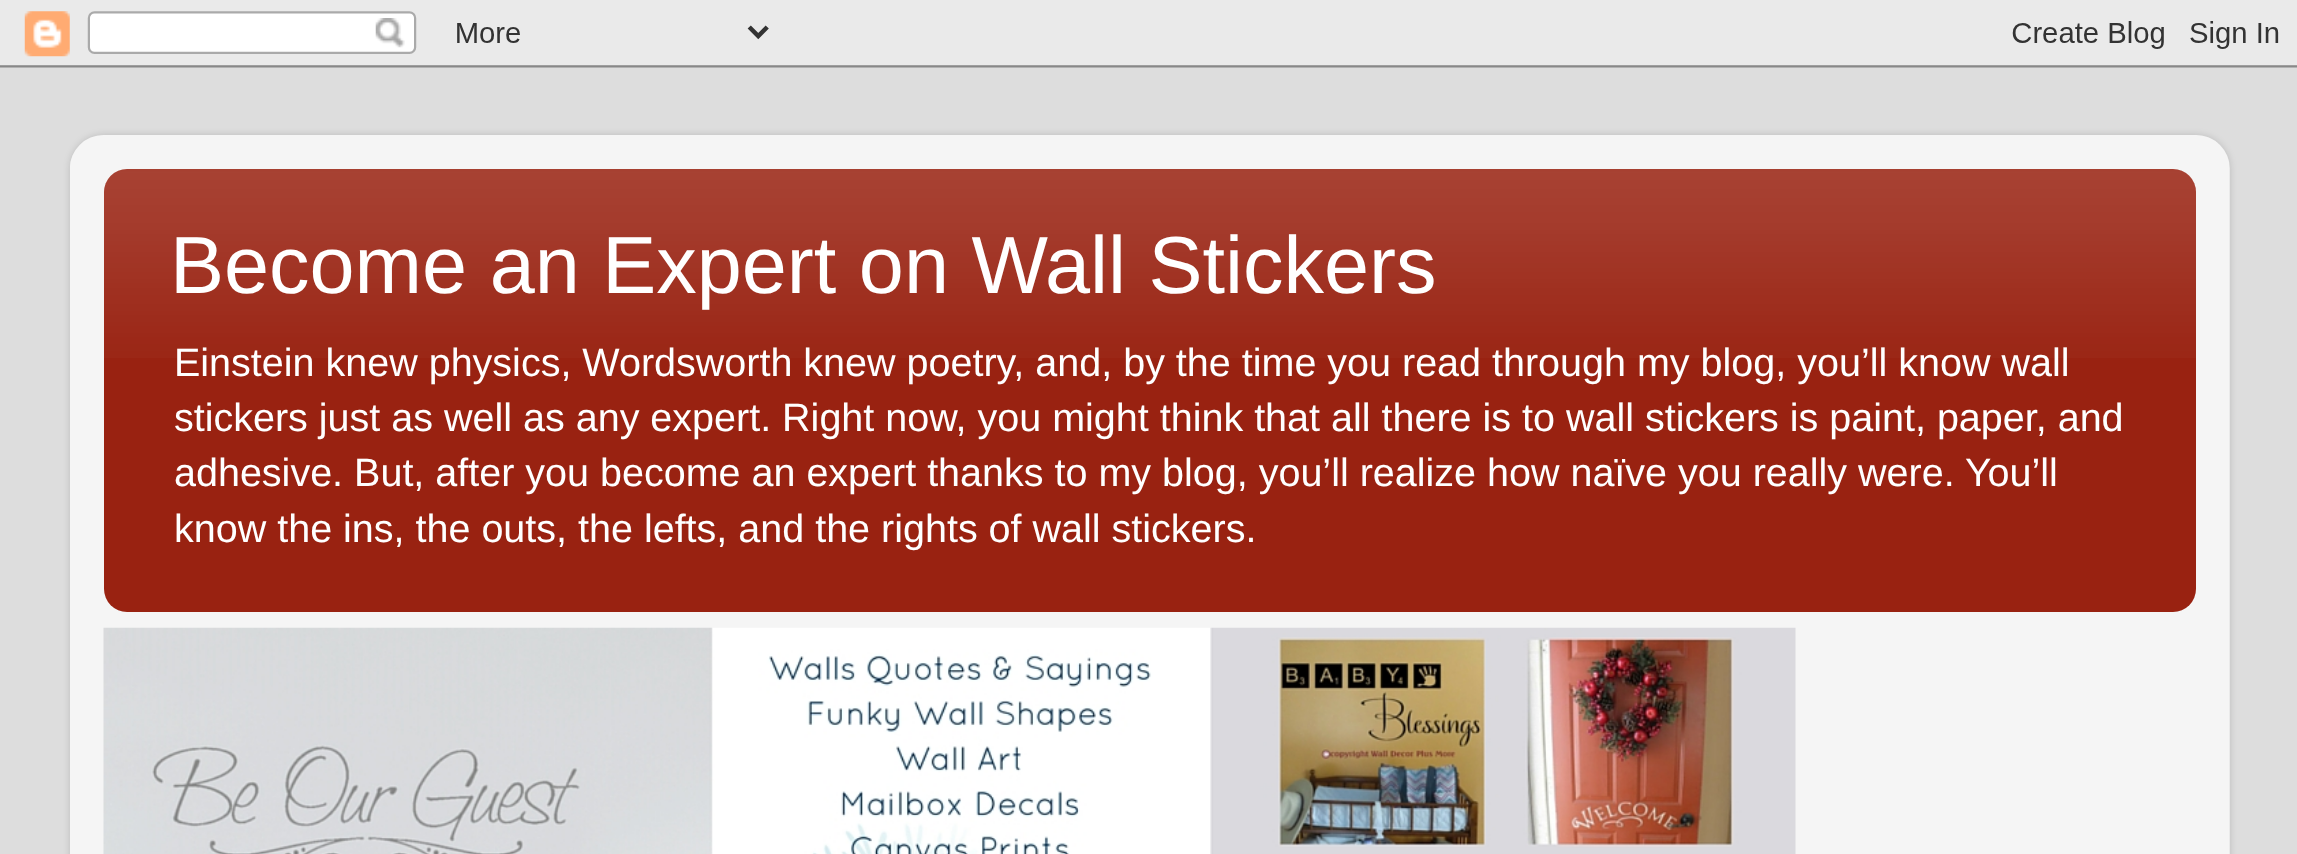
<!DOCTYPE html>
<meta charset="utf-8">
<style>body { margin: 0 } canvas { display: block }</style>
<canvas id="canvas" width="2297" height="854"></canvas>
<img id="img1" src="img_01.png" hidden>
<img id="img2" src="img_02.png" hidden>
<img id="img3" src="img_03.png" hidden>
<img id="img4" src="img_04.png" hidden>
<script>
window.onload = function () {
	const canvas = document.getElementById("canvas");
	const ctx = canvas.getContext("2d");
	ctx.miterLimit = 4;
	ctx.fontKerning = "normal";
	function txt(s, x, y) {
		ctx.fillText(s, x, y);
	}
	function fill(x, y, w, h) {
		ctx.fillRect(x, y, w, h);
	}
	function round(x, y, w, h, r) {
		ctx.beginPath();
		ctx.roundRect(x, y, w, h, r);
		ctx.fill();
	}
	function img(id, x, y, w, h) {
		ctx.drawImage(document.getElementById(id), x, y, w, h);
	}

	ctx.fillStyle = "#DDDDDD";
	fill(0, 0, 2297, 854);
	img("img1", 0, 0, 2297, 68);
	ctx.save();
	ctx.beginPath();
	ctx.moveTo(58, 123);
	ctx.lineTo(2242, 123);
	ctx.lineTo(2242, 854);
	ctx.lineTo(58, 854);
	ctx.closePath();
	ctx.moveTo(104, 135);
	ctx.lineTo(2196, 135);
	ctx.bezierCurveTo(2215, 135, 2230, 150, 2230, 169);
	ctx.lineTo(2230, 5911);
	ctx.bezierCurveTo(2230, 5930, 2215, 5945, 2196, 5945);
	ctx.lineTo(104, 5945);
	ctx.bezierCurveTo(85, 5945, 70, 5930, 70, 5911);
	ctx.lineTo(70, 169);
	ctx.bezierCurveTo(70, 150, 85, 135, 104, 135);
	ctx.closePath();
	ctx.clip("evenodd");
	ctx.fillStyle = "rgba(0, 0, 0, 0.15)";
	ctx.filter = "blur(3.5px)";
	ctx.beginPath();
	ctx.roundRect(70, 135, 2160, 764, 34);
	ctx.fill();
	ctx.filter = "none";
	ctx.restore();
	img("img2", 70, 135, 2160, 719);
	ctx.fillStyle = "#992211";
	round(104, 169, 2092, 443, 23);
	img("img3", 104, 169, 2092, 189);
	img("img4", 103, 627, 1693, 227);
	ctx.font = "81px Liberation Sans";
	ctx.fillStyle = "#FFFFFF";
	txt("Become an Expert on Wall Stickers", 170, 293);
	ctx.font = "39.5px Liberation Sans";
	txt("Einstein knew physics, Wordsworth knew poetry, and, by the time you read through my blog, you’ll know wall", 174, 376);
	txt("stickers just as well as any expert. Right now, you might think that all there is to wall stickers is paint, paper, and", 174, 431);
	txt("adhesive. But, after you become an expert thanks to my blog, you’ll realize how naïve you really were. You’ll", 174, 486);
	txt("know the ins, the outs, the lefts, and the rights of wall stickers.", 174, 542);
};
</script>
